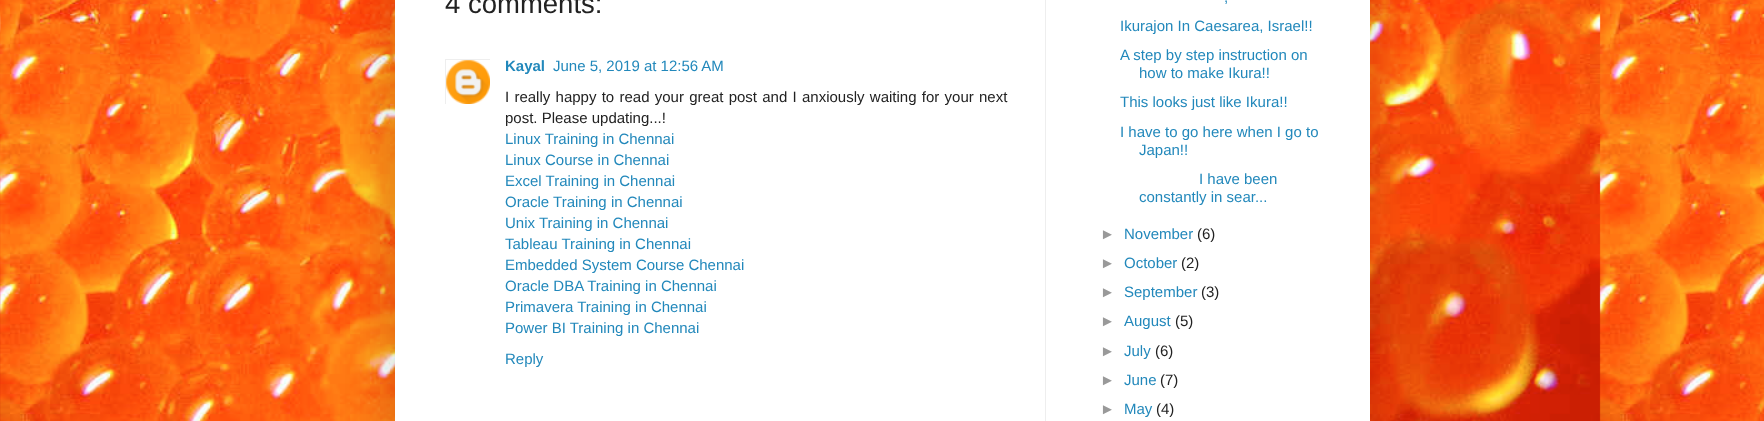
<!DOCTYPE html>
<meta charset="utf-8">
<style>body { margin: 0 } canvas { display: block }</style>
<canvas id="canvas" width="1764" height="421"></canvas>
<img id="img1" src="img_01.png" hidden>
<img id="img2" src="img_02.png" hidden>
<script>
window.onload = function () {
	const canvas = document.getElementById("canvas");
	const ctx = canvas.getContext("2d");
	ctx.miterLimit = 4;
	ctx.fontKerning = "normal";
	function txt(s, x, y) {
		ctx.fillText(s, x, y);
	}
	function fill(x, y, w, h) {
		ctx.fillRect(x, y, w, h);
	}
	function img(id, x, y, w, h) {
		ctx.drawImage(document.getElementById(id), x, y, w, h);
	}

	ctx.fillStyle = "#FFFFFF";
	fill(0, 0, 1764, 421);
	img("img1", 0, 0, 1764, 421);
	ctx.fillStyle = "rgba(0, 0, 0, 0.15)";
	ctx.filter = "blur(25px)";
	ctx.beginPath();
	ctx.rect(395, -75, 975, 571);
	ctx.fill();
	ctx.filter = "none";
	ctx.fillStyle = "#FFFFFF";
	fill(395, 0, 975, 421);
	ctx.save();
	ctx.beginPath();
	ctx.rect(445, 59, 45, 45);
	ctx.clip();
	ctx.strokeStyle = "#EEEEEE";
	ctx.strokeRect(445.5, 59.5, 45, 45);
	ctx.restore();
	img("img2", 446, 60, 44, 44);
	ctx.fillStyle = "#EEEEEE";
	fill(1045, 0, 1, 421);
	ctx.font = "27.5px Liberation Sans";
	ctx.fillStyle = "#222222";
	txt("4 comments:", 445, 13);
	ctx.font = "bold 15px Liberation Sans";
	ctx.fillStyle = "#2288BB";
	txt("Kayal", 505, 71);
	ctx.font = "15px Liberation Sans";
	txt("June 5, 2019 at 12:56 AM", 553, 71);
	ctx.wordSpacing = "1.1px";
	ctx.fillStyle = "#222222";
	txt("I really happy to read your great post and I anxiously waiting for your next", 505, 102);
	ctx.wordSpacing = "0px";
	txt("post. Please updating...!", 505, 123);
	ctx.fillStyle = "#2288BB";
	txt("Linux Training in Chennai", 505, 144);
	txt("Linux Course in Chennai", 505, 165);
	txt("Excel Training in Chennai", 505, 186);
	txt("Oracle Training in Chennai", 505, 207);
	txt("Unix Training in Chennai", 505, 228);
	txt("Tableau Training in Chennai", 505, 249);
	txt("Embedded System Course Chennai", 505, 270);
	txt("Oracle DBA Training in Chennai", 505, 291);
	txt("Primavera Training in Chennai", 505, 312);
	txt("Power BI Training in Chennai", 505, 333);
	txt("Reply", 505, 364);
	txt(",", 1224, 2);
	txt("Ikurajon In Caesarea, Israel!!", 1120, 31);
	txt("A step by step instruction on", 1120, 60);
	txt("how to make Ikura!!", 1139, 78);
	txt("This looks just like Ikura!!", 1120, 107);
	txt("I have to go here when I go to", 1120, 137);
	txt("Japan!!", 1139, 155);
	txt("I have been", 1199, 184);
	txt("constantly in sear...", 1139, 202);
	ctx.fillStyle = "#999999";
	txt("►", 1100, 239);
	ctx.fillStyle = "#2288BB";
	txt("November", 1124, 239);
	ctx.fillStyle = "#222222";
	txt("(6)", 1197, 239);
	ctx.fillStyle = "#999999";
	txt("►", 1100, 268);
	ctx.fillStyle = "#2288BB";
	txt("October", 1124, 268);
	ctx.fillStyle = "#222222";
	txt("(2)", 1181, 268);
	ctx.fillStyle = "#999999";
	txt("►", 1100, 297);
	ctx.fillStyle = "#2288BB";
	txt("September", 1124, 297);
	ctx.fillStyle = "#222222";
	txt("(3)", 1201, 297);
	ctx.fillStyle = "#999999";
	txt("►", 1100, 326);
	ctx.fillStyle = "#2288BB";
	txt("August", 1124, 326);
	ctx.fillStyle = "#222222";
	txt("(5)", 1175, 326);
	ctx.fillStyle = "#999999";
	txt("►", 1100, 356);
	ctx.fillStyle = "#2288BB";
	txt("July", 1124, 356);
	ctx.fillStyle = "#222222";
	txt("(6)", 1155, 356);
	ctx.fillStyle = "#999999";
	txt("►", 1100, 385);
	ctx.fillStyle = "#2288BB";
	txt("June", 1124, 385);
	ctx.fillStyle = "#222222";
	txt("(7)", 1160, 385);
	ctx.fillStyle = "#999999";
	txt("►", 1100, 414);
	ctx.fillStyle = "#2288BB";
	txt("May", 1124, 414);
	ctx.fillStyle = "#222222";
	txt("(4)", 1156, 414);
};
</script>
